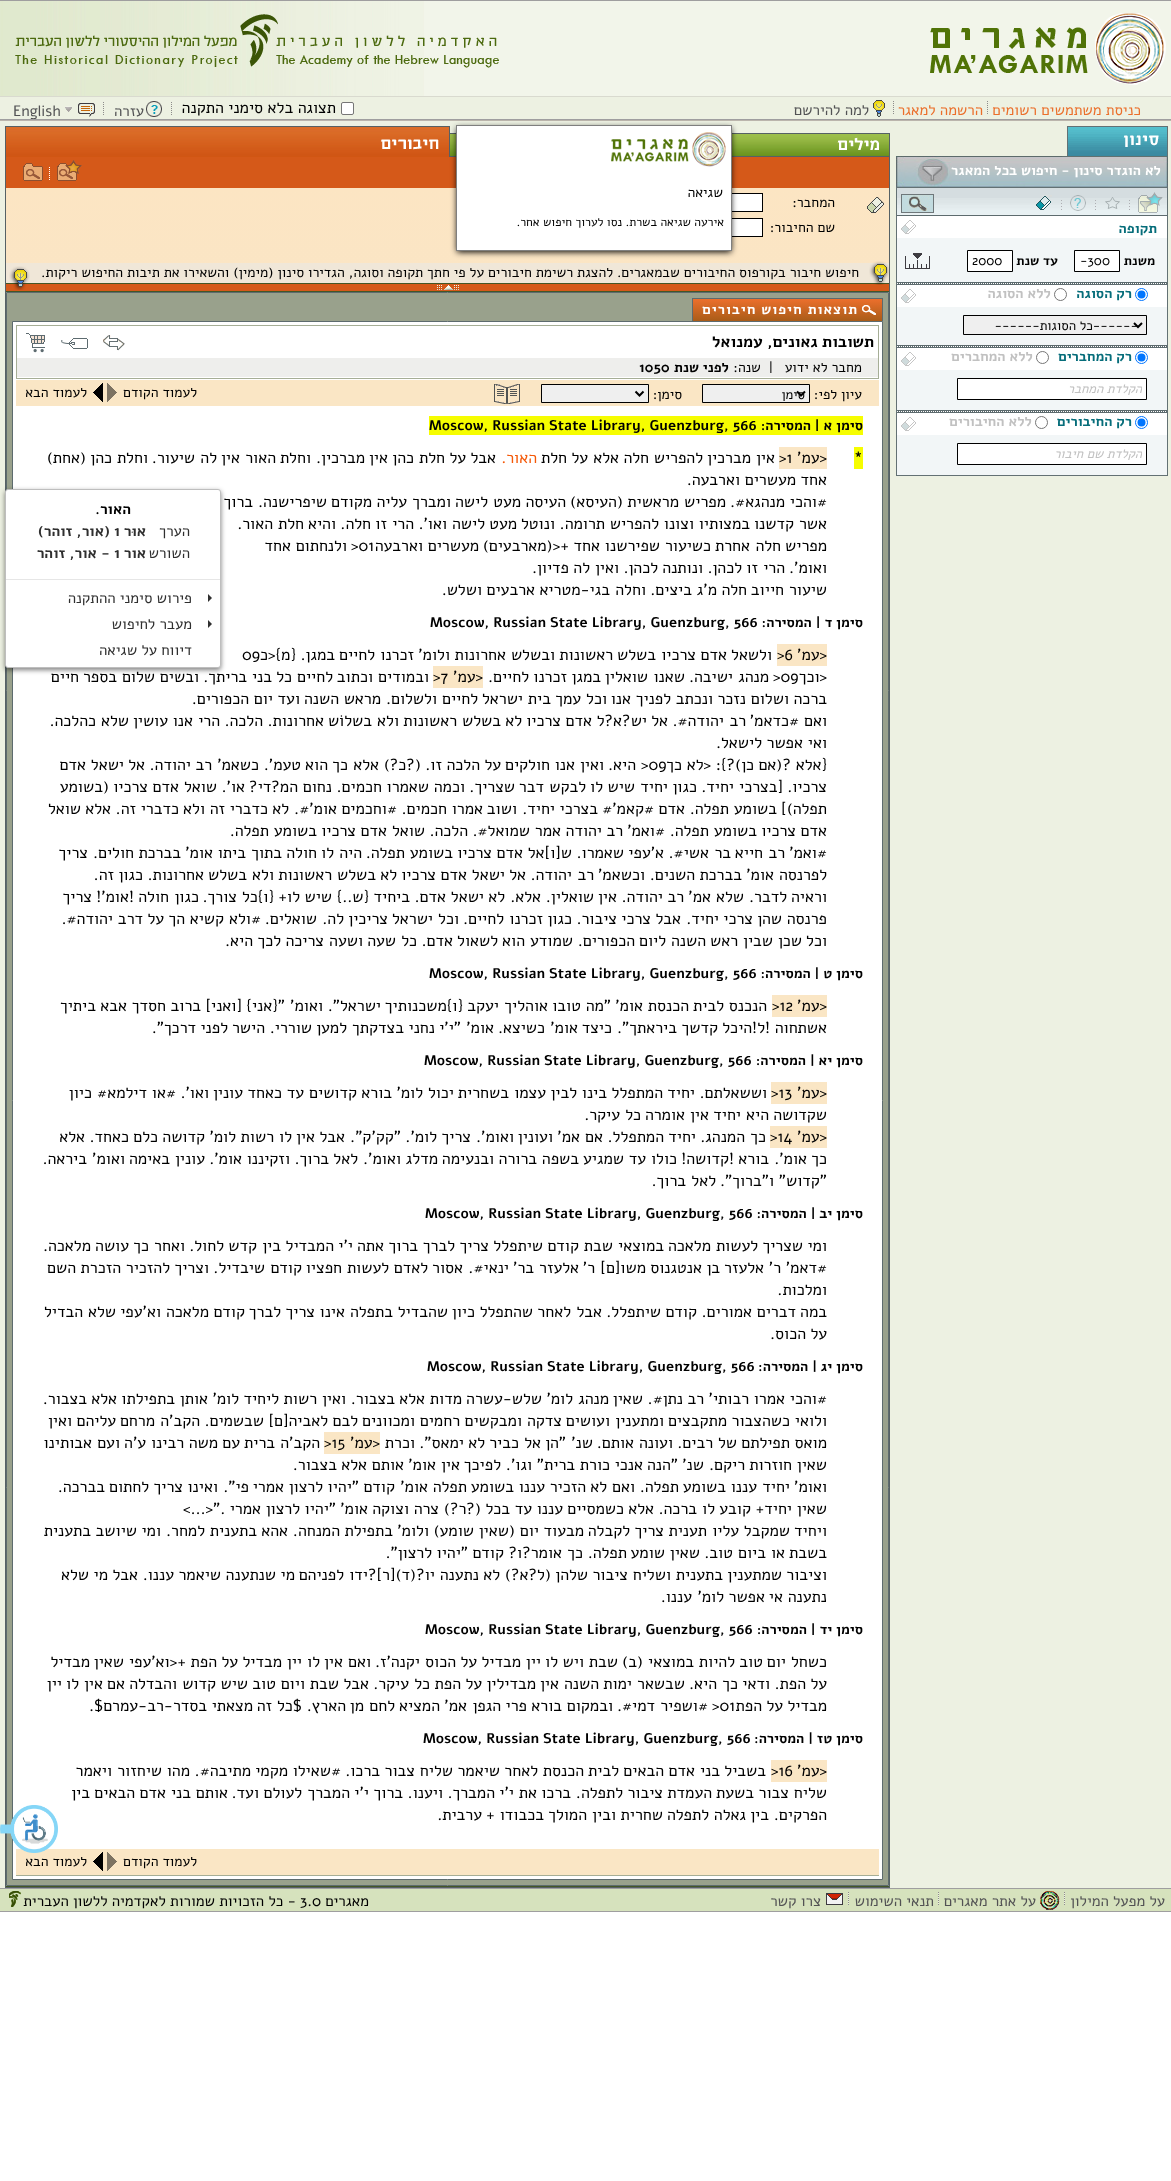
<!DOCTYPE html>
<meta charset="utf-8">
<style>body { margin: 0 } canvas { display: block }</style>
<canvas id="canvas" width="1171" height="2181"></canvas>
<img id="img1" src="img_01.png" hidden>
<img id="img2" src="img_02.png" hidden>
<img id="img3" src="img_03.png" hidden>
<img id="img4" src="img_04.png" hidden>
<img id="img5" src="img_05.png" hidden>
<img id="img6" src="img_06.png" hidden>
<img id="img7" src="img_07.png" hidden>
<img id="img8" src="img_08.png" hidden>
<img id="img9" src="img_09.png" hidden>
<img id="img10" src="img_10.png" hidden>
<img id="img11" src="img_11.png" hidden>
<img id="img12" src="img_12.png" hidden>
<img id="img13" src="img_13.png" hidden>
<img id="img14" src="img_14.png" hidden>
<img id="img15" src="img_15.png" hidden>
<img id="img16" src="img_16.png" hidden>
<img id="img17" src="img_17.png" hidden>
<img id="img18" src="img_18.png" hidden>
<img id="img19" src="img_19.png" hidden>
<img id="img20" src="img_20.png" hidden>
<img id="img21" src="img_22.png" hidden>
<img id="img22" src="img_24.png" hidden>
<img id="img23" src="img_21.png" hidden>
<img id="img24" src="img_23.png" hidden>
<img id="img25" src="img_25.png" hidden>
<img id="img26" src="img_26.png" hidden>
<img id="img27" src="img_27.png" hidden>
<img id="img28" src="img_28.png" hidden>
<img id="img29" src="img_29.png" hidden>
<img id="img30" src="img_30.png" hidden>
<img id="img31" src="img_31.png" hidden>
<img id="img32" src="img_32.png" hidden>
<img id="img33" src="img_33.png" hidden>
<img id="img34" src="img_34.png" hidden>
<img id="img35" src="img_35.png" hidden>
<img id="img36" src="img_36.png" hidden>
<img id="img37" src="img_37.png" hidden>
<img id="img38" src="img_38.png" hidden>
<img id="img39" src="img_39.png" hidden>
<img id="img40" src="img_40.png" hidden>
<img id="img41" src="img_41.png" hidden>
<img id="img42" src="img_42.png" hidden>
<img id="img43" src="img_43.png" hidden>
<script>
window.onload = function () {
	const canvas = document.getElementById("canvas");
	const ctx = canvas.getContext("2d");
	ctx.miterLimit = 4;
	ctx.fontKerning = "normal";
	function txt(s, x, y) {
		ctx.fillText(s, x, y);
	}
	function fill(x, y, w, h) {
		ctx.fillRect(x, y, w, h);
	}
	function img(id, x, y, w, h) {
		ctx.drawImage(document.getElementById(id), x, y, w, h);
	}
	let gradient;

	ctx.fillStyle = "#FFFFFF";
	fill(0, 0, 1171, 2181);
	ctx.fillStyle = "#EDF1E2";
	fill(0, 97, 1171, 1791);
	ctx.fillStyle = "#9F9E9F";
	fill(0, 0, 1171, 1);
	fill(0, 1911, 1171, 1);
	ctx.fillStyle = "#BBB5AC";
	fill(0, 120, 1171, 1);
	ctx.fillStyle = "#F2F5EA";
	fill(424, 1, 747, 95);
	img("img1", 0, 1, 424, 95);
	img("img2", 930, 13, 236, 72);
	img("img3", 15, 14, 484, 54);
	ctx.fillStyle = "#D9DACF";
	fill(0, 96, 1171, 1);
	ctx.fillStyle = "#9F9E9F";
	fill(0, 119, 1171, 1);
	img("img4", 987, 101, 1, 13);
	img("img4", 893, 101, 1, 13);
	img("img5", 873, 100, 12, 17);
	ctx.fillStyle = "#FFFFFF";
	ctx.beginPath();
	ctx.roundRect(341.5, 102.5, 12, 12, 1.5);
	ctx.fill();
	ctx.strokeStyle = "#767676";
	ctx.stroke();
	img("img4", 171, 102, 1, 13);
	img("img6", 146, 101, 16, 16);
	img("img4", 103, 102, 1, 13);
	img("img7", 65, 103, 30, 14);
	img("img8", 1068, 127, 99, 29);
	ctx.fillStyle = "#637174";
	fill(1067, 126, 101, 1);
	fill(1167, 126, 1, 30);
	fill(1067, 126, 1, 30);
	img("img9", 1123, 135, 36, 12);
	img("img10", 896, 156, 272, 31);
	ctx.fillStyle = "#D5DDE0";
	fill(897, 188, 270, 10);
	img("img11", 897, 198, 270, 18);
	ctx.fillStyle = "#637174";
	fill(896, 187, 272, 1);
	fill(1167, 187, 1, 289);
	fill(896, 187, 1, 29);
	img("img12", 1129, 200, 1, 10);
	img("img13", 1138, 192, 25, 21);
	img("img12", 1095, 200, 1, 10);
	img("img14", 1105, 197, 15, 12);
	img("img12", 1061, 200, 1, 10);
	img("img15", 1070, 195, 16, 16);
	img("img16", 1036, 195, 16, 15);
	img("img17", 901, 194, 33, 19);
	fill(896, 475, 272, 1);
	fill(896, 216, 1, 260);
	ctx.fillStyle = "#F2F6F7";
	fill(897, 238, 270, 44);
	ctx.fillStyle = "#FFFFFF";
	fill(897, 216, 270, 22);
	img("img18", 897, 282, 270, 3);
	img("img19", 901, 220, 15, 14);
	ctx.beginPath();
	ctx.rect(1074.5, 250.5, 45, 21);
	ctx.fill();
	ctx.strokeStyle = "#000000";
	ctx.stroke();
	ctx.beginPath();
	ctx.rect(967.5, 250.5, 45, 21);
	ctx.fill();
	ctx.stroke();
	img("img20", 905, 253, 25, 16);
	ctx.fillStyle = "#F2F6F7";
	fill(897, 307, 270, 38);
	ctx.fillStyle = "#FFFFFF";
	fill(897, 285, 270, 22);
	img("img18", 897, 345, 270, 3);
	ctx.beginPath();
	ctx.arc(1141.5, 294.5, 6, 0, Math.PI * 2);
	ctx.strokeStyle = "#0075FF";
	ctx.stroke();
	ctx.fillStyle = "#0075FF";
	ctx.beginPath();
	ctx.arc(1141.5, 294.5, 4, 0, Math.PI * 2);
	ctx.fill();
	ctx.beginPath();
	ctx.arc(1060.5, 294.5, 6, 0, Math.PI * 2);
	ctx.strokeStyle = "#767676";
	ctx.stroke();
	img("img19", 901, 289, 15, 14);
	ctx.fillStyle = "#EFEFEF";
	ctx.beginPath();
	ctx.rect(963.5, 315.5, 183, 19);
	ctx.fill();
	ctx.strokeStyle = "#000000";
	ctx.stroke();
	ctx.beginPath();
	ctx.moveTo(1134, 323);
	ctx.lineTo(1138, 327);
	ctx.lineTo(1142, 323);
	ctx.lineWidth = 2;
	ctx.stroke();
	ctx.fillStyle = "#F2F6F7";
	fill(897, 370, 270, 40);
	ctx.fillStyle = "#FFFFFF";
	fill(897, 348, 270, 22);
	img("img18", 897, 410, 270, 3);
	ctx.beginPath();
	ctx.arc(1141.5, 357.5, 6, 0, Math.PI * 2);
	ctx.strokeStyle = "#0075FF";
	ctx.lineWidth = 1;
	ctx.stroke();
	ctx.fillStyle = "#0075FF";
	ctx.beginPath();
	ctx.arc(1141.5, 357.5, 4, 0, Math.PI * 2);
	ctx.fill();
	ctx.beginPath();
	ctx.arc(1042.5, 357.5, 6, 0, Math.PI * 2);
	ctx.strokeStyle = "#767676";
	ctx.stroke();
	img("img19", 901, 352, 15, 14);
	ctx.fillStyle = "#FFFFFF";
	ctx.beginPath();
	ctx.rect(957.5, 378.5, 189, 21);
	ctx.fill();
	ctx.strokeStyle = "#000000";
	ctx.stroke();
	ctx.fillStyle = "#F2F6F7";
	fill(897, 435, 270, 40);
	ctx.fillStyle = "#FFFFFF";
	fill(897, 413, 270, 22);
	ctx.beginPath();
	ctx.arc(1141.5, 422.5, 6, 0, Math.PI * 2);
	ctx.strokeStyle = "#0075FF";
	ctx.stroke();
	ctx.fillStyle = "#0075FF";
	ctx.beginPath();
	ctx.arc(1141.5, 422.5, 4, 0, Math.PI * 2);
	ctx.fill();
	ctx.beginPath();
	ctx.arc(1041.5, 422.5, 6, 0, Math.PI * 2);
	ctx.strokeStyle = "#767676";
	ctx.stroke();
	img("img19", 901, 417, 15, 14);
	ctx.fillStyle = "#FFFFFF";
	ctx.beginPath();
	ctx.rect(957.5, 443.5, 189, 21);
	ctx.fill();
	ctx.strokeStyle = "#000000";
	ctx.stroke();
	img("img21", 450, 134, 439, 22);
	ctx.fillStyle = "#566165";
	fill(889, 156, 1, 1732);
	ctx.strokeStyle = "#566165";
	ctx.strokeRect(446.5, 133.5, 443, 23);
	img("img22", 6, 127, 443, 30);
	fill(5, 126, 445, 1);
	fill(449, 126, 1, 31);
	ctx.fillStyle = "#D55919";
	fill(6, 157, 883, 31);
	gradient = ctx.createLinearGradient(6, 188, 6, 1886);
	gradient.addColorStop(0, "#FCE5C3");
	gradient.addColorStop(1, "#E5E8DF");
	ctx.fillStyle = gradient;
	fill(6, 188, 883, 75);
	ctx.fillStyle = "#FFFFFF";
	fill(732, 194, 30, 17);
	ctx.strokeStyle = "#000000";
	ctx.strokeRect(561.5, 193.5, 201, 18);
	fill(732, 219, 30, 17);
	ctx.strokeRect(561.5, 218.5, 201, 18);
	ctx.fillStyle = "#000000";
	ctx.filter = "blur(3px)";
	ctx.beginPath();
	ctx.rect(457, 128, 274, 124);
	ctx.fill();
	ctx.filter = "none";
	ctx.fillStyle = "#FFFFFF";
	fill(457, 126, 274, 124);
	img("img23", 611, 132, 115, 35);
	ctx.strokeStyle = "#7F7F7F";
	ctx.strokeRect(456.5, 125.5, 275, 125);
	img("img24", 837, 137, 42, 13);
	ctx.fillStyle = "#566165";
	fill(5, 1887, 885, 1);
	fill(5, 156, 1, 1732);
	fill(5, 126, 1, 31);
	img("img25", 381, 139, 58, 11);
	img("img26", 49, 167, 1, 13);
	img("img27", 57, 160, 25, 21);
	img("img28", 23, 163, 20, 18);
	ctx.fillStyle = "#445626";
	fill(6, 1886, 883, 1);
	img("img29", 867, 197, 17, 16);
	ctx.fillStyle = "#D55919";
	fill(6, 284, 883, 7);
	ctx.fillStyle = "#445626";
	fill(6, 291, 883, 1);
	ctx.fillStyle = "#F0E7D8";
	fill(6, 263, 883, 20);
	ctx.fillStyle = "#445626";
	fill(6, 283, 883, 1);
	img("img30", 869, 261, 20, 24);
	img("img31", 9, 266, 21, 24);
	img("img32", 437, 285, 22, 5);
	ctx.fillStyle = "#99A18C";
	ctx.beginPath();
	ctx.rect(6.5, 292.5, 882, 1593);
	ctx.fill();
	ctx.strokeStyle = "#5D6B6E";
	ctx.stroke();
	ctx.fillStyle = "#5D6B6E";
	fill(692, 298, 191, 1);
	fill(882, 298, 1, 23);
	fill(692, 298, 1, 23);
	gradient = ctx.createLinearGradient(693, 299, 693, 321);
	gradient.addColorStop(0, "#EC6F2C");
	gradient.addColorStop(1, "#A95C18");
	ctx.fillStyle = gradient;
	fill(693, 299, 189, 22);
	img("img33", 862, 305, 14, 10);
	ctx.fillStyle = "#FFFFFF";
	ctx.beginPath();
	ctx.rect(12.5, 321.5, 870, 1558);
	ctx.fill();
	ctx.stroke();
	ctx.strokeStyle = "#A6AE96";
	ctx.strokeRect(16.5, 325.5, 862, 53);
	img("img34", 103, 335, 22, 16);
	img("img35", 61, 338, 27, 11);
	img("img36", 26, 333, 19, 20);
	ctx.fillStyle = "#EEEEEC";
	fill(17, 358, 861, 19);
	ctx.fillStyle = "#FAE6C5";
	fill(16, 380, 863, 26);
	ctx.fillStyle = "#EFEFEF";
	ctx.beginPath();
	ctx.rect(702.5, 384.5, 107, 18);
	ctx.fill();
	ctx.strokeStyle = "#000000";
	ctx.stroke();
	ctx.beginPath();
	ctx.moveTo(797, 391.5);
	ctx.lineTo(801, 395.5);
	ctx.lineTo(805, 391.5);
	ctx.lineWidth = 2;
	ctx.stroke();
	ctx.beginPath();
	ctx.rect(541.5, 384.5, 107, 18);
	ctx.fill();
	ctx.lineWidth = 1;
	ctx.stroke();
	ctx.beginPath();
	ctx.moveTo(635.5, 391.5);
	ctx.lineTo(639.5, 395.5);
	ctx.lineTo(643.5, 391.5);
	ctx.lineWidth = 2;
	ctx.stroke();
	img("img37", 494, 384, 26, 20);
	img("img38", 107, 383, 10, 19);
	img("img39", 93, 383, 10, 19);
	ctx.fillStyle = "#F6FD00";
	fill(429, 416, 434, 19);
	fill(854, 447, 9, 22);
	ctx.fillStyle = "#FAE6C5";
	fill(779, 447, 48, 22);
	fill(777, 644, 50, 22);
	fill(433, 666, 50, 22);
	fill(772, 995, 55, 22);
	fill(771, 1082, 56, 22);
	fill(770, 1126, 57, 22);
	fill(324, 1432, 56, 22);
	fill(771, 1760, 56, 22);
	fill(16, 1849, 863, 26);
	ctx.fillStyle = "#A6AE96";
	fill(16, 1875, 863, 1);
	img("img38", 107, 1852, 10, 19);
	img("img39", 93, 1852, 10, 19);
	ctx.fillStyle = "#D6E2BD";
	fill(0, 1889, 1171, 22);
	ctx.fillStyle = "#9F9E9F";
	fill(0, 1888, 1171, 1);
	img("img4", 1064, 1892, 1, 13);
	img("img4", 938, 1892, 1, 13);
	img("img40", 1040, 1891, 20, 19);
	img("img4", 848, 1892, 1, 13);
	img("img41", 826, 1893, 17, 12);
	img("img42", 9, 1891, 12, 16);
	ctx.fillStyle = "rgba(0, 0, 0, 0.5)";
	ctx.filter = "blur(2.5px)";
	ctx.beginPath();
	ctx.roundRect(5, 491, 216, 179, 3);
	ctx.fill();
	ctx.filter = "none";
	ctx.fillStyle = "#FFFFFF";
	ctx.beginPath();
	ctx.roundRect(5.5, 489.5, 215, 178, 2.5);
	ctx.fill();
	ctx.strokeStyle = "#BEBEBE";
	ctx.lineWidth = 1;
	ctx.stroke();
	ctx.fillStyle = "#E6E6E6";
	fill(6, 579, 214, 1);
	ctx.fillStyle = "#2F2F2F";
	ctx.beginPath();
	ctx.moveTo(208, 602);
	ctx.lineTo(208, 594);
	ctx.lineTo(212, 598);
	ctx.closePath();
	ctx.moveTo(208, 628);
	ctx.lineTo(208, 620);
	ctx.lineTo(212, 624);
	ctx.closePath();
	ctx.fill();
	img("img43", 0, 1805, 58, 48);
	ctx.direction = "rtl";
	ctx.font = "15px Alef";
	ctx.fillStyle = "#EB6F2B";
	txt("כניסת משתמשים רשומים", 1141, 115);
	txt("הרשמה למאגר", 983, 115);
	ctx.fillStyle = "#525254";
	txt("למה להירשם", 869, 115);
	ctx.font = "16px Alef";
	ctx.fillStyle = "#000000";
	txt("תצוגה בלא סימני התקנה", 336, 113);
	ctx.font = "15px Alef";
	ctx.fillStyle = "#525254";
	txt("עזרה", 144, 116);
	ctx.save();
	ctx.beginPath();
	ctx.rect(0, 97, 1171, 22);
	ctx.clip();
	ctx.direction = "ltr";
	txt("English", 13, 116);
	ctx.restore();
	ctx.font = "bold 14px Alef";
	ctx.fillStyle = "#FFFFFF";
	txt("לא הוגדר סינון - חיפוש בכל המאגר", 1161, 175);
	ctx.fillStyle = "#066D7A";
	txt("תקופה", 1157, 233);
	ctx.font = "bold 13px Alef";
	ctx.fillStyle = "#000000";
	txt("משנת", 1155, 265);
	ctx.direction = "ltr";
	ctx.font = "13.25px Alef";
	txt("-300", 1080, 265);
	ctx.direction = "rtl";
	ctx.font = "bold 13px Alef";
	txt("עד שנת", 1058, 265);
	ctx.direction = "ltr";
	ctx.font = "13.25px Alef";
	txt("2000", 972, 265);
	ctx.direction = "rtl";
	ctx.font = "bold 14px Alef";
	ctx.fillStyle = "#066D7A";
	txt("רק הסוגה", 1132, 298);
	ctx.fillStyle = "#C1C1C1";
	txt("ללא הסוגה", 1051, 298);
	ctx.font = "13.25px Alef";
	ctx.fillStyle = "#000000";
	txt("------כל הסוגות------", 1138, 330);
	ctx.font = "bold 14px Alef";
	ctx.fillStyle = "#066D7A";
	txt("רק המחברים", 1132, 361);
	ctx.fillStyle = "#C1C1C1";
	txt("ללא המחברים", 1033, 361);
	ctx.save();
	ctx.beginPath();
	ctx.rect(958, 380, 184, 18);
	ctx.clip();
	ctx.font = "italic 13px Alef";
	txt("הקלדת המחבר", 1142, 393);
	ctx.restore();
	ctx.fillStyle = "#066D7A";
	txt("רק החיבורים", 1132, 426);
	ctx.fillStyle = "#C1C1C1";
	txt("ללא החיבורים", 1032, 426);
	ctx.save();
	ctx.beginPath();
	ctx.rect(958, 445, 184, 18);
	ctx.clip();
	ctx.font = "italic 13px Alef";
	txt("הקלדת שם חיבור", 1142, 458);
	ctx.restore();
	ctx.font = "14px Alef";
	ctx.fillStyle = "#000000";
	txt("שגיאה", 723, 197);
	ctx.font = "12px Alef";
	txt("אירעה שגיאה בשרת. נסו לערוך חיפוש אחר.", 724, 226);
	ctx.font = "14px Alef";
	txt("המחבר:", 835, 207);
	txt("שם החיבור:", 835, 232);
	txt("חיפוש חיבור בקורפוס החיבורים שבמאגרים.", 859, 277);
	txt("להצגת רשימת חיבורים על פי חתך תקופה וסוגה, הגדירו סינון (מימין) והשאירו את תיבות החיפוש ריקות.", 613, 277);
	ctx.letterSpacing = "1px";
	ctx.font = "bold 14px Alef";
	ctx.fillStyle = "#FFFFFF";
	txt("תוצאות חיפוש חיבורים", 858, 314);
	ctx.letterSpacing = "0px";
	ctx.font = "bold 16px Alef";
	ctx.fillStyle = "#000000";
	txt("תשובות גאונים, עמנואל", 874, 347);
	ctx.font = "14px Alef";
	txt("מחבר לא ידוע", 862, 372);
	txt("|  שנה:", 773, 372);
	ctx.font = "bold 14px Alef";
	txt("לפני שנת", 729, 372);
	ctx.direction = "ltr";
	txt("1050", 639, 372);
	ctx.direction = "rtl";
	ctx.font = "14px Alef";
	txt("עיון לפי:", 862, 399);
	ctx.font = "13.25px Alef";
	txt("סימן", 805, 399);
	ctx.font = "14px Alef";
	txt("סימן:", 682, 399);
	txt("לעמוד הקודם", 197, 397);
	txt("לעמוד הבא", 87, 397);
	ctx.font = "bold 14px Alef";
	txt("סימן א | המסירה:", 863, 430);
	ctx.direction = "ltr";
	txt("Moscow, Russian State Library, Guenzburg, 566", 429, 430);
	ctx.font = "bold 16px Alef";
	txt("*", 854, 463);
	ctx.direction = "rtl";
	ctx.font = "16px Alef";
	txt("<עמ'", 827, 463);
	ctx.direction = "ltr";
	txt(">1", 779, 463);
	ctx.direction = "rtl";
	txt("אין", 775, 463);
	txt("מברכין", 751, 463);
	txt("להפריש", 703, 463);
	txt("חלה", 649, 463);
	txt("אלא", 619, 463);
	txt("על", 588, 463);
	txt("חלת", 567, 463);
	ctx.fillStyle = "#F45909";
	txt("האור.", 537, 463);
	ctx.fillStyle = "#000000";
	txt("אבל", 496, 463);
	txt("על", 466, 463);
	txt("חלת", 445, 463);
	txt("כהן", 414, 463);
	txt("אין", 388, 463);
	txt("מברכין.", 365, 463);
	txt("וחלת", 311, 463);
	txt("האור", 276, 463);
	txt("אין", 240, 463);
	txt("לה", 217, 463);
	txt("שיעור.", 195, 463);
	txt("וחלת", 148, 463);
	txt("כהן", 112, 463);
	txt("(אחת)", 86, 463);
	txt("אחד", 827, 485);
	txt("מעשרים", 796, 485);
	txt("וארבעה.", 740, 485);
	txt("#והכי", 827, 507);
	txt("מנהגא#.", 785, 507);
	txt("מפריש", 726, 507);
	txt("מראשית", 679, 507);
	txt("(העיסא)", 623, 507);
	txt("העיסה", 566, 507);
	txt("מעט", 521, 507);
	txt("לישה", 488, 507);
	txt("ומברך", 451, 507);
	txt("עליה", 407, 507);
	txt("מקודם", 372, 507);
	txt("שיפרישנה.", 327, 507);
	txt("ברוך", 253, 507);
	txt("אשר", 827, 529);
	txt("קדשנו", 794, 529);
	txt("במצותיו", 750, 529);
	txt("וצונו", 694, 529);
	txt("להפריש", 659, 529);
	txt("תרומה.", 605, 529);
	txt("ונוטל", 555, 529);
	txt("מעט", 517, 529);
	txt("לישה", 485, 529);
	txt("ואו'.", 447, 529);
	txt("הרי", 414, 529);
	txt("זו", 387, 529);
	txt("חלה.", 371, 529);
	txt("והיא", 336, 529);
	txt("חלת", 304, 529);
	txt("האור.", 273, 529);
	txt("מפריש", 827, 551);
	txt("חלה", 781, 551);
	txt("אחרת", 750, 551);
	txt("כשיעור", 711, 551);
	txt("שפירשנו", 660, 551);
	txt("אחד", 600, 551);
	txt("+<(מארבעים)", 569, 551);
	txt("מעשרים", 479, 551);
	txt("וארבעה", 423, 551);
	ctx.direction = "ltr";
	txt(">01", 351, 551);
	ctx.direction = "rtl";
	txt("ולנחתום", 347, 551);
	txt("אחד", 291, 551);
	txt("ואומ'.", 827, 573);
	txt("הרי", 785, 573);
	txt("זו", 758, 573);
	txt("לכהן.", 742, 573);
	txt("ונותנה", 703, 573);
	txt("לכהן.", 658, 573);
	txt("ואין", 619, 573);
	txt("לה", 590, 573);
	txt("פדיון.", 569, 573);
	txt("שיעור", 827, 595);
	txt("חייוב", 784, 595);
	txt("חלה", 747, 595);
	txt("מ'ג", 717, 595);
	txt("ביצים.", 692, 595);
	txt("וחלה", 646, 595);
	txt("בגי-מטריא", 610, 595);
	txt("ארבעים", 535, 595);
	txt("ושלש.", 482, 595);
	ctx.font = "bold 14px Alef";
	txt("סימן ד | המסירה:", 863, 627);
	ctx.direction = "ltr";
	txt("Moscow, Russian State Library, Guenzburg, 566", 430, 627);
	ctx.direction = "rtl";
	ctx.font = "16px Alef";
	txt("<עמ'", 827, 660);
	ctx.direction = "ltr";
	txt(">6", 777, 660);
	ctx.direction = "rtl";
	txt("ולשאל", 772, 660);
	txt("אדם", 727, 660);
	txt("צרכיו", 696, 660);
	txt("בשלש", 656, 660);
	txt("ראשונות", 613, 660);
	txt("ובשלש", 555, 660);
	txt("אחרונות", 506, 660);
	txt("ולומ'", 450, 660);
	txt("זכרנו", 414, 660);
	txt("לחיים", 375, 660);
	txt("במגן.", 335, 660);
	txt("{מ}<כ", 296, 660);
	ctx.direction = "ltr";
	txt("09", 242, 660);
	ctx.direction = "rtl";
	txt("<וכך", 827, 682);
	ctx.direction = "ltr";
	txt(">09", 773, 682);
	ctx.direction = "rtl";
	txt("מנהג", 769, 682);
	txt("ישיבה.", 733, 682);
	txt("שאנו", 685, 682);
	txt("שואלין", 648, 682);
	txt("במגן", 601, 682);
	txt("זכרנו", 567, 682);
	txt("לחיים.", 529, 682);
	txt("<עמ'", 483, 682);
	ctx.direction = "ltr";
	txt(">7", 433, 682);
	ctx.direction = "rtl";
	txt("ובמודים", 429, 682);
	txt("וכתוב", 373, 682);
	txt("לחיים", 333, 682);
	txt("כל", 292, 682);
	txt("בני", 272, 682);
	txt("בריתך.", 247, 682);
	txt("ובשים", 199, 682);
	txt("שלום", 155, 682);
	txt("בספר", 117, 682);
	txt("חיים", 79, 682);
	txt("ברכה", 827, 704);
	txt("ושלום", 789, 704);
	txt("נזכר", 746, 704);
	txt("ונכתב", 713, 704);
	txt("לפניך", 671, 704);
	txt("אנו", 631, 704);
	txt("וכל", 607, 704);
	txt("עמך", 581, 704);
	txt("בית", 551, 704);
	txt("ישראל", 523, 704);
	txt("לחיים", 478, 704);
	txt("ולשלום.", 437, 704);
	txt("מראש", 381, 704);
	txt("השנה", 339, 704);
	txt("ועד", 300, 704);
	txt("יום", 273, 704);
	txt("הכפורים.", 249, 704);
	txt("ואם", 827, 726);
	txt("#כדאמ'", 799, 726);
	txt("רב", 746, 726);
	txt("יהודה#.", 724, 726);
	txt("אל", 668, 726);
	txt("יש?א?ל", 647, 726);
	txt("אדם", 592, 726);
	txt("צרכיו", 561, 726);
	txt("לא", 522, 726);
	txt("בשלש", 501, 726);
	txt("ראשונות", 457, 726);
	txt("ולא", 399, 726);
	txt("בשלוֹש", 372, 726);
	txt("אחרונות.", 324, 726);
	txt("הלכה.", 263, 726);
	txt("הרי", 220, 726);
	txt("אנו", 193, 726);
	txt("עושין", 168, 726);
	txt("שלא", 129, 726);
	txt("כהלכה.", 96, 726);
	txt("ואי", 827, 748);
	txt("אפשר", 803, 748);
	txt("לישאל.", 762, 748);
	txt("{אלא", 827, 770);
	txt("?(אם", 791, 770);
	txt("כן)?}:", 754, 770);
	txt("<לא", 711, 770);
	txt("כך", 682, 770);
	ctx.direction = "ltr";
	txt(">09", 641, 770);
	ctx.direction = "rtl";
	txt("היא.", 636, 770);
	txt("ואין", 604, 770);
	txt("אנו", 575, 770);
	txt("חולקים", 550, 770);
	txt("על", 501, 770);
	txt("הלכה", 480, 770);
	txt("זו.", 442, 770);
	txt("(?כ?)", 421, 770);
	txt("אלא", 379, 770);
	txt("כך", 348, 770);
	txt("הוא", 328, 770);
	txt("טעמ'.", 301, 770);
	txt("כשאמ'", 259, 770);
	txt("רב", 212, 770);
	txt("יהודה.", 191, 770);
	txt("אל", 145, 770);
	txt("ישאל", 124, 770);
	txt("אדם", 86, 770);
	txt("צרכיו.", 827, 792);
	txt("[בצרכי", 783, 792);
	txt("יחיד.", 734, 792);
	txt("כגון", 697, 792);
	txt("יחיד", 668, 792);
	txt("שיש", 635, 792);
	txt("לו", 603, 792);
	txt("לבקש", 586, 792);
	txt("דבר", 544, 792);
	txt("שצריך.", 515, 792);
	txt("וכמה", 465, 792);
	txt("שאמרו", 429, 792);
	txt("חכמים.", 382, 792);
	txt("נחום", 332, 792);
	txt("המ?די?", 298, 792);
	txt("או'.", 245, 792);
	txt("שואל", 217, 792);
	txt("אדם", 179, 792);
	txt("צרכיו", 148, 792);
	txt("(בשומע", 109, 792);
	txt("תפלה)]", 827, 814);
	txt("בשומע", 777, 814);
	txt("תפלה.", 729, 814);
	txt("אדם", 685, 814);
	txt("#קאמ'#", 654, 814);
	txt("בצרכי", 598, 814);
	txt("יחיד.", 555, 814);
	txt("ושוב", 517, 814);
	txt("אמרו", 483, 814);
	txt("חכמים.", 447, 814);
	txt("#וחכמים", 397, 814);
	txt("אומ'#.", 337, 814);
	txt("לא", 289, 814);
	txt("כדברי", 268, 814);
	txt("זה", 225, 814);
	txt("ולא", 205, 814);
	txt("כדברי", 179, 814);
	txt("זה.", 136, 814);
	txt("אלא", 111, 814);
	txt("שואל", 81, 814);
	txt("אדם", 827, 836);
	txt("צרכיו", 796, 836);
	txt("בשומע", 757, 836);
	txt("תפלה.", 709, 836);
	txt("#ואמ'", 665, 836);
	txt("רב", 623, 836);
	txt("יהודה", 602, 836);
	txt("אמר", 561, 836);
	txt("שמואל#.", 530, 836);
	txt("הלכה.", 468, 836);
	txt("שואל", 425, 836);
	txt("אדם", 387, 836);
	txt("צרכיו", 356, 836);
	txt("בשומע", 317, 836);
	txt("תפלה.", 269, 836);
	txt("#ואמ'", 827, 858);
	txt("רב", 785, 858);
	txt("חייא", 763, 858);
	txt("בר", 731, 858);
	txt("אשי#.", 709, 858);
	txt("א'עפי", 664, 858);
	txt("שאמרו.", 624, 858);
	txt("ש[ו]אל", 572, 858);
	txt("אדם", 523, 858);
	txt("צרכיו", 492, 858);
	txt("בשומע", 453, 858);
	txt("תפלה.", 405, 858);
	txt("היה", 362, 858);
	txt("לו", 334, 858);
	txt("חולה", 317, 858);
	txt("בתוך", 282, 858);
	txt("ביתו", 246, 858);
	txt("אומ'", 213, 858);
	txt("בברכת", 181, 858);
	txt("חולים.", 134, 858);
	txt("צריך", 88, 858);
	txt("לפרנסה", 827, 880);
	txt("אומ'", 774, 880);
	txt("בברכת", 742, 880);
	txt("השנים.", 695, 880);
	txt("וכשאמ'", 645, 880);
	txt("רב", 594, 880);
	txt("יהודה.", 572, 880);
	txt("אל", 526, 880);
	txt("ישאל", 505, 880);
	txt("אדם", 467, 880);
	txt("צרכיו", 436, 880);
	txt("לא", 397, 880);
	txt("בשלש", 376, 880);
	txt("ראשונות", 332, 880);
	txt("ולא", 274, 880);
	txt("בשלש", 247, 880);
	txt("אחרונות.", 204, 880);
	txt("כגון", 143, 880);
	txt("זה.", 114, 880);
	txt("וראיה", 827, 902);
	txt("לדבר.", 787, 902);
	txt("שלא", 744, 902);
	txt("אמ'", 711, 902);
	txt("רב", 684, 902);
	txt("יהודה.", 663, 902);
	txt("אין", 617, 902);
	txt("שואלין.", 594, 902);
	txt("אלא.", 541, 902);
	txt("לא", 505, 902);
	txt("ישאל", 484, 902);
	txt("אדם.", 446, 902);
	txt("ביחיד", 410, 902);
	txt("{ש..}", 369, 902);
	txt("שיש", 332, 902);
	txt("לו+", 300, 902);
	txt("{ו}כל", 274, 902);
	txt("צורך.", 237, 902);
	txt("כגון", 199, 902);
	txt("חולה", 169, 902);
	txt("!אומ'!", 134, 902);
	txt("צריך", 92, 902);
	txt("פרנסה", 827, 924);
	txt("שהן", 782, 924);
	txt("צרכי", 753, 924);
	txt("יחיד.", 719, 924);
	txt("אבל", 681, 924);
	txt("צרכי", 651, 924);
	txt("ציבור.", 617, 924);
	txt("כגון", 572, 924);
	txt("זכרנו", 543, 924);
	txt("לחיים.", 504, 924);
	txt("וכל", 459, 924);
	txt("ישראל", 433, 924);
	txt("צריכין", 388, 924);
	txt("לה.", 344, 924);
	txt("שואלים.", 317, 924);
	txt("#ולא", 261, 924);
	txt("קשיא", 224, 924);
	txt("הך", 185, 924);
	txt("על", 164, 924);
	txt("דרב", 143, 924);
	txt("יהודה#.", 113, 924);
	txt("וכל", 827, 946);
	txt("שכן", 802, 946);
	txt("שבין", 773, 946);
	txt("ראש", 738, 946);
	txt("השנה", 706, 946);
	txt("ליום", 666, 946);
	txt("הכפורים.", 635, 946);
	txt("שמודע", 573, 946);
	txt("הוא", 525, 946);
	txt("לשאול", 498, 946);
	txt("אדם.", 453, 946);
	txt("כל", 417, 946);
	txt("שעה", 396, 946);
	txt("ושעה", 363, 946);
	txt("צריכה", 324, 946);
	txt("לכך", 281, 946);
	txt("היא.", 253, 946);
	ctx.font = "bold 14px Alef";
	txt("סימן ט | המסירה:", 863, 978);
	ctx.direction = "ltr";
	txt("Moscow, Russian State Library, Guenzburg, 566", 429, 978);
	ctx.direction = "rtl";
	ctx.font = "16px Alef";
	txt("<עמ'", 827, 1011);
	ctx.direction = "ltr";
	txt(">12", 772, 1011);
	ctx.direction = "rtl";
	txt("הנכנס", 767, 1011);
	txt("לבית", 724, 1011);
	txt("הכנסת", 689, 1011);
	txt("אומ'", 643, 1011);
	txt("\"מה", 611, 1011);
	txt("טובו", 581, 1011);
	txt("אוהליך", 548, 1011);
	txt("יעקב", 499, 1011);
	txt("{ו}משכנותיך", 463, 1011);
	txt("ישראל\".", 381, 1011);
	txt("ואומ'", 323, 1011);
	txt("\"{אני}", 285, 1011);
	txt("[ואני]", 242, 1011);
	txt("ברוב", 201, 1011);
	txt("חסדך", 166, 1011);
	txt("אבא", 127, 1011);
	txt("ביתיך", 96, 1011);
	txt("אשתחוה", 827, 1033);
	txt("!ל!היכל", 770, 1033);
	txt("קדשך", 718, 1033);
	txt("ביראתך\".", 677, 1033);
	txt("כיצד", 612, 1033);
	txt("אומ'", 578, 1033);
	txt("כשיצא.", 545, 1033);
	txt("אומ'", 494, 1033);
	txt("\"י'י", 461, 1033);
	txt("נחני", 435, 1033);
	txt("בצדקתך", 404, 1033);
	txt("למען", 347, 1033);
	txt("שוררי.", 312, 1033);
	txt("הישר", 265, 1033);
	txt("לפני", 228, 1033);
	txt("דרכך\".", 196, 1033);
	ctx.font = "bold 14px Alef";
	txt("סימן יא | המסירה:", 863, 1065);
	ctx.direction = "ltr";
	txt("Moscow, Russian State Library, Guenzburg, 566", 424, 1065);
	ctx.direction = "rtl";
	ctx.font = "16px Alef";
	txt("<עמ'", 827, 1098);
	ctx.direction = "ltr";
	txt(">13", 771, 1098);
	ctx.direction = "rtl";
	txt("וששאלתם.", 767, 1098);
	txt("יחיד", 695, 1098);
	txt("המתפלל", 663, 1098);
	txt("בינו", 607, 1098);
	txt("לבין", 577, 1098);
	txt("עצמו", 546, 1098);
	txt("בשחרית", 509, 1098);
	txt("יכול", 454, 1098);
	txt("לומ'", 423, 1098);
	txt("בורא", 392, 1098);
	txt("קדושים", 357, 1098);
	txt("עד", 304, 1098);
	txt("כאחד", 282, 1098);
	txt("עונין", 243, 1098);
	txt("ואו'.", 209, 1098);
	txt("#או", 176, 1098);
	txt("דילמא#", 147, 1098);
	txt("כיון", 92, 1098);
	txt("שקדושה", 827, 1120);
	txt("היא", 769, 1120);
	txt("יחיד", 741, 1120);
	txt("אין", 709, 1120);
	txt("אומרה", 685, 1120);
	txt("כל", 641, 1120);
	txt("עיקר.", 620, 1120);
	txt("<עמ'", 827, 1142);
	ctx.direction = "ltr";
	txt(">14", 770, 1142);
	ctx.direction = "rtl";
	txt("כך", 766, 1142);
	txt("המנהג.", 745, 1142);
	txt("יחיד", 696, 1142);
	txt("המתפלל.", 664, 1142);
	txt("אם", 603, 1142);
	txt("אמ'", 580, 1142);
	txt("ועונין", 553, 1142);
	txt("ואומ'.", 514, 1142);
	txt("צריך", 471, 1142);
	txt("לומ'.", 437, 1142);
	txt("\"קק'ק\".", 401, 1142);
	txt("אבל", 345, 1142);
	txt("אין", 315, 1142);
	txt("לו", 292, 1142);
	txt("רשות", 274, 1142);
	txt("לומ'", 236, 1142);
	txt("קדושה", 205, 1142);
	txt("כלם", 158, 1142);
	txt("כאחד.", 129, 1142);
	txt("אלא", 85, 1142);
	txt("כך", 827, 1164);
	txt("אומ'.", 807, 1164);
	txt("בורא", 769, 1164);
	txt("!קדושה!", 734, 1164);
	txt("כולו", 677, 1164);
	txt("עד", 646, 1164);
	txt("שמגיע", 624, 1164);
	txt("בשפה", 579, 1164);
	txt("ברורה", 537, 1164);
	txt("ובנעימה", 494, 1164);
	txt("מדלג", 438, 1164);
	txt("ואומ'.", 401, 1164);
	txt("לאל", 358, 1164);
	txt("ברוך.", 329, 1164);
	txt("וזקיננו", 290, 1164);
	txt("אומ'.", 242, 1164);
	txt("עונין", 205, 1164);
	txt("באימה", 170, 1164);
	txt("ואומ'", 125, 1164);
	txt("ביראה.", 87, 1164);
	txt("\"קדוש\"", 827, 1186);
	txt("ו\"ברוך\".", 774, 1186);
	txt("לאל", 716, 1186);
	txt("ברוך.", 686, 1186);
	ctx.font = "bold 14px Alef";
	txt("סימן יב | המסירה:", 863, 1218);
	ctx.direction = "ltr";
	txt("Moscow, Russian State Library, Guenzburg, 566", 425, 1218);
	ctx.direction = "rtl";
	ctx.font = "16px Alef";
	txt("ומי", 827, 1251);
	txt("שצריך", 803, 1251);
	txt("לעשות", 758, 1251);
	txt("מלאכה", 711, 1251);
	txt("במוצאי", 664, 1251);
	txt("שבת", 613, 1251);
	txt("קודם", 579, 1251);
	txt("שיתפלל", 543, 1251);
	txt("צריך", 489, 1251);
	txt("לברך", 455, 1251);
	txt("ברוך", 418, 1251);
	txt("אתה", 384, 1251);
	txt("י'י", 353, 1251);
	txt("המבדיל", 334, 1251);
	txt("בין", 281, 1251);
	txt("קדש", 257, 1251);
	txt("לחול.", 224, 1251);
	txt("ואחר", 185, 1251);
	txt("כך", 149, 1251);
	txt("עושה", 129, 1251);
	txt("מלאכה.", 91, 1251);
	txt("#דאמ'", 827, 1273);
	txt("ר'", 781, 1273);
	txt("אלעזר", 764, 1273);
	txt("בן", 720, 1273);
	txt("אנטגנוס", 702, 1273);
	txt("משו[ם]", 646, 1273);
	txt("ר'", 595, 1273);
	txt("אלעזר", 579, 1273);
	txt("בר'", 534, 1273);
	txt("ינאי#.", 509, 1273);
	txt("אסור", 463, 1273);
	txt("לאדם", 428, 1273);
	txt("לעשות", 389, 1273);
	txt("חפציו", 342, 1273);
	txt("קודם", 302, 1273);
	txt("שיבדיל.", 265, 1273);
	txt("וצריך", 209, 1273);
	txt("להזכיר", 170, 1273);
	txt("הזכרת", 121, 1273);
	txt("השם", 76, 1273);
	txt("ומלכות.", 827, 1295);
	txt("במה", 827, 1317);
	txt("דברים", 796, 1317);
	txt("אמורים.", 752, 1317);
	txt("קודם", 697, 1317);
	txt("שיתפלל.", 661, 1317);
	txt("אבל", 602, 1317);
	txt("לאחר", 571, 1317);
	txt("שהתפלל", 533, 1317);
	txt("כיון", 475, 1317);
	txt("שהבדיל", 448, 1317);
	txt("בתפלה", 393, 1317);
	txt("אינו", 345, 1317);
	txt("צריך", 315, 1317);
	txt("לברך", 281, 1317);
	txt("קודם", 245, 1317);
	txt("מלאכה", 209, 1317);
	txt("וא'עפי", 161, 1317);
	txt("שלא", 116, 1317);
	txt("הבדיל", 83, 1317);
	txt("על", 827, 1339);
	txt("הכוס.", 806, 1339);
	ctx.font = "bold 14px Alef";
	txt("סימן יג | המסירה:", 863, 1371);
	ctx.direction = "ltr";
	txt("Moscow, Russian State Library, Guenzburg, 566", 427, 1371);
	ctx.direction = "rtl";
	ctx.font = "16px Alef";
	txt("#והכי", 827, 1404);
	txt("אמרו", 785, 1404);
	txt("רבותי'", 749, 1404);
	txt("רב", 704, 1404);
	txt("נתן#.", 683, 1404);
	txt("שאין", 643, 1404);
	txt("מנהג", 609, 1404);
	txt("לומ'", 573, 1404);
	txt("שלש-עשרה", 542, 1404);
	txt("מדות", 462, 1404);
	txt("אלא", 425, 1404);
	txt("בצבור.", 395, 1404);
	txt("ואין", 346, 1404);
	txt("רשות", 317, 1404);
	txt("ליחיד", 279, 1404);
	txt("לומ'", 239, 1404);
	txt("אותן", 208, 1404);
	txt("בתפילתו", 175, 1404);
	txt("אלא", 117, 1404);
	txt("בצבור.", 87, 1404);
	txt("ולואי", 827, 1426);
	txt("כשהצבור", 790, 1426);
	txt("מתקבצים", 727, 1426);
	txt("ומתענין", 664, 1426);
	txt("ועושים", 610, 1426);
	txt("צדקה", 562, 1426);
	txt("ומבקשים", 522, 1426);
	txt("רחמים", 460, 1426);
	txt("ומכוונים", 415, 1426);
	txt("לבם", 358, 1426);
	txt("לאביה[ם]", 328, 1426);
	txt("שבשמים.", 264, 1426);
	txt("הקב'ה", 200, 1426);
	txt("מרחם", 155, 1426);
	txt("עליהם", 116, 1426);
	txt("ואין", 72, 1426);
	txt("מואס", 827, 1448);
	txt("תפילתם", 790, 1448);
	txt("של", 737, 1448);
	txt("רבים.", 713, 1448);
	txt("ועונה", 673, 1448);
	txt("אותם.", 634, 1448);
	txt("שנ'", 593, 1448);
	txt("\"הן", 566, 1448);
	txt("אל", 541, 1448);
	txt("כביר", 519, 1448);
	txt("לא", 485, 1448);
	txt("ימאס\".", 464, 1448);
	txt("וכרת", 415, 1448);
	txt("<עמ'", 380, 1448);
	ctx.direction = "ltr";
	txt(">15", 324, 1448);
	ctx.direction = "rtl";
	txt("הקב'ה", 320, 1448);
	txt("ברית", 275, 1448);
	txt("עם", 240, 1448);
	txt("משה", 218, 1448);
	txt("רבינו", 184, 1448);
	txt("ע'ה", 146, 1448);
	txt("ועם", 120, 1448);
	txt("אבותינו", 92, 1448);
	txt("שאין", 827, 1470);
	txt("חוזרות", 792, 1470);
	txt("ריקם.", 745, 1470);
	txt("שנ'", 704, 1470);
	txt("\"הנה", 678, 1470);
	txt("אנכי", 643, 1470);
	txt("כורת", 610, 1470);
	txt("ברית\"", 575, 1470);
	txt("וגו'.", 532, 1470);
	txt("לפיכך", 501, 1470);
	txt("אין", 460, 1470);
	txt("אומ'", 436, 1470);
	txt("אותם", 404, 1470);
	txt("אלא", 367, 1470);
	txt("בצבור.", 337, 1470);
	txt("ואומ'", 827, 1492);
	txt("יחיד", 790, 1492);
	txt("עננו", 757, 1492);
	txt("בשומע", 726, 1492);
	txt("תפלה.", 679, 1492);
	txt("ואם", 635, 1492);
	txt("לא", 607, 1492);
	txt("הזכיר", 586, 1492);
	txt("עננו", 545, 1492);
	txt("בשומע", 514, 1492);
	txt("תפלה", 467, 1492);
	txt("אומ'", 428, 1492);
	txt("קודם", 395, 1492);
	txt("\"יהיו", 359, 1492);
	txt("לרצון", 323, 1492);
	txt("אמרי", 284, 1492);
	txt("פי\".", 249, 1492);
	txt("ואינו", 218, 1492);
	txt("צריך", 183, 1492);
	txt("לחתום", 149, 1492);
	txt("בברכה.", 105, 1492);
	txt("שאין", 827, 1514);
	txt("יחיד+", 792, 1514);
	txt("קובע", 751, 1514);
	txt("לו", 715, 1514);
	txt("ברכה.", 697, 1514);
	txt("אלא", 654, 1514);
	txt("כשמסיים", 624, 1514);
	txt("עננו", 563, 1514);
	txt("עד", 532, 1514);
	txt("בכל", 510, 1514);
	txt("(?ר?)", 481, 1514);
	txt("צרה", 439, 1514);
	txt("וצוקה", 409, 1514);
	txt("אומ'", 368, 1514);
	txt("\"יהיו", 336, 1514);
	txt("לרצון", 300, 1514);
	txt("אמרי", 261, 1514);
	ctx.direction = "ltr";
	txt("<...>\".", 183, 1514);
	ctx.direction = "rtl";
	txt("ויחיד", 827, 1536);
	txt("שמקבל", 790, 1536);
	txt("עליו", 739, 1536);
	txt("תענית", 707, 1536);
	txt("צריך", 664, 1536);
	txt("לקבלה", 630, 1536);
	txt("מבעוד", 584, 1536);
	txt("יום", 539, 1536);
	txt("(שאין", 515, 1536);
	txt("שומע)", 474, 1536);
	txt("ולומ'", 429, 1536);
	txt("בתפילת", 393, 1536);
	txt("המנחה.", 340, 1536);
	txt("אהא", 288, 1536);
	txt("בתענית", 257, 1536);
	txt("למחר.", 205, 1536);
	txt("ומי", 161, 1536);
	txt("שיושב", 137, 1536);
	txt("בתענית", 91, 1536);
	txt("בשבת", 827, 1558);
	txt("או", 785, 1558);
	txt("ביום", 766, 1558);
	txt("טוב.", 733, 1558);
	txt("שאין", 700, 1558);
	txt("שומע", 665, 1558);
	txt("תפלה.", 627, 1558);
	txt("כך", 583, 1558);
	txt("אומר?ו?", 562, 1558);
	txt("קודם", 504, 1558);
	txt("\"יהיו", 468, 1558);
	txt("לרצון\".", 432, 1558);
	txt("וציבור", 827, 1580);
	txt("שמתענין", 782, 1580);
	txt("בתענית", 723, 1580);
	txt("ושליח", 671, 1580);
	txt("ציבור", 628, 1580);
	txt("שלהן", 588, 1580);
	txt("(ל?א?)", 551, 1580);
	txt("לא", 500, 1580);
	txt("נתענה", 479, 1580);
	txt("יו?(ד)[ר]?ידו", 435, 1580);
	txt("לפניהם", 344, 1580);
	txt("מי", 295, 1580);
	txt("שנתענה", 276, 1580);
	txt("שיאמר", 221, 1580);
	txt("עננו.", 174, 1580);
	txt("אבל", 138, 1580);
	txt("מי", 108, 1580);
	txt("שלא", 89, 1580);
	txt("נתענה", 827, 1602);
	txt("אי", 783, 1602);
	txt("אפשר", 765, 1602);
	txt("לומ'", 724, 1602);
	txt("עננו.", 692, 1602);
	ctx.font = "bold 14px Alef";
	txt("סימן יד | המסירה:", 863, 1634);
	ctx.direction = "ltr";
	txt("Moscow, Russian State Library, Guenzburg, 566", 425, 1634);
	ctx.direction = "rtl";
	ctx.font = "16px Alef";
	txt("כשחל", 827, 1667);
	txt("יום", 786, 1667);
	txt("טוב", 763, 1667);
	txt("להיות", 735, 1667);
	txt("במוצאי", 694, 1667);
	txt("(ב)", 643, 1667);
	txt("שבת", 618, 1667);
	txt("ויש", 584, 1667);
	txt("לו", 558, 1667);
	txt("יין", 541, 1667);
	txt("מבדיל", 521, 1667);
	txt("על", 477, 1667);
	txt("הכוס", 456, 1667);
	txt("יקנה'ז.", 420, 1667);
	txt("ואם", 371, 1667);
	txt("אין", 343, 1667);
	txt("לו", 320, 1667);
	txt("יין", 302, 1667);
	txt("מבדיל", 282, 1667);
	txt("על", 238, 1667);
	txt("הפת", 217, 1667);
	txt("+<וא'עפי", 186, 1667);
	txt("שאין", 124, 1667);
	txt("מבדיל", 90, 1667);
	txt("על", 827, 1689);
	txt("הפת.", 806, 1689);
	txt("ודאי", 770, 1689);
	txt("כך", 738, 1689);
	txt("היא.", 717, 1689);
	txt("שבשאר", 685, 1689);
	txt("ימות", 632, 1689);
	txt("השנה", 599, 1689);
	txt("אין", 559, 1689);
	txt("מבדילין", 536, 1689);
	txt("על", 482, 1689);
	txt("הפת", 461, 1689);
	txt("כל", 430, 1689);
	txt("עיקר.", 409, 1689);
	txt("אבל", 369, 1689);
	txt("שבת", 339, 1689);
	txt("ויום", 305, 1689);
	txt("טוב", 276, 1689);
	txt("שיש", 248, 1689);
	txt("קדוש", 216, 1689);
	txt("והבדלה", 177, 1689);
	txt("אם", 125, 1689);
	txt("אין", 103, 1689);
	txt("לו", 79, 1689);
	txt("יין", 62, 1689);
	txt("מבדיל", 827, 1711);
	txt("על", 783, 1711);
	txt("הפת", 762, 1711);
	ctx.direction = "ltr";
	txt(">01", 712, 1711);
	ctx.direction = "rtl";
	txt("#ושפיר", 708, 1711);
	txt("דמי#.", 655, 1711);
	txt("ובמקום", 613, 1711);
	txt("בורא", 562, 1711);
	txt("פרי", 527, 1711);
	txt("הגפן", 501, 1711);
	txt("אמ'", 467, 1711);
	txt("המציא", 440, 1711);
	txt("לחם", 395, 1711);
	txt("מן", 364, 1711);
	txt("הארץ.", 346, 1711);
	txt("$כל", 302, 1711);
	txt("זה", 272, 1711);
	txt("מצאתי", 253, 1711);
	txt("בסדר-רב-עמרם$.", 207, 1711);
	ctx.font = "bold 14px Alef";
	txt("סימן טז | המסירה:", 863, 1743);
	ctx.direction = "ltr";
	txt("Moscow, Russian State Library, Guenzburg, 566", 423, 1743);
	ctx.direction = "rtl";
	ctx.font = "16px Alef";
	txt("<עמ'", 827, 1776);
	ctx.direction = "ltr";
	txt(">16", 771, 1776);
	ctx.direction = "rtl";
	txt("בשביל", 766, 1776);
	txt("בני", 720, 1776);
	txt("אדם", 695, 1776);
	txt("הבאים", 664, 1776);
	txt("לבית", 619, 1776);
	txt("הכנסת", 584, 1776);
	txt("לאחר", 538, 1776);
	txt("שיאמר", 500, 1776);
	txt("שליח", 453, 1776);
	txt("צבור", 415, 1776);
	txt("ברכו.", 380, 1776);
	txt("#שאילו", 341, 1776);
	txt("מקמי", 288, 1776);
	txt("מתיבה#.", 251, 1776);
	txt("מהו", 190, 1776);
	txt("שיחזור", 162, 1776);
	txt("ויאמר", 112, 1776);
	txt("שליח", 827, 1798);
	txt("צבור", 789, 1798);
	txt("בשעת", 754, 1798);
	txt("העמדת", 712, 1798);
	txt("ציבור", 663, 1798);
	txt("לתפלה.", 623, 1798);
	txt("ברכו", 571, 1798);
	txt("את", 537, 1798);
	txt("י'י", 514, 1798);
	txt("המברך.", 495, 1798);
	txt("ויענו.", 443, 1798);
	txt("ברוך", 403, 1798);
	txt("י'י", 369, 1798);
	txt("המברך", 350, 1798);
	txt("לעולם", 302, 1798);
	txt("ועד.", 259, 1798);
	txt("אותם", 228, 1798);
	txt("בני", 191, 1798);
	txt("אדם", 166, 1798);
	txt("הבאים", 135, 1798);
	txt("בין", 90, 1798);
	txt("הפרקים.", 827, 1820);
	txt("בין", 769, 1820);
	txt("גאלה", 746, 1820);
	txt("לתפלה", 709, 1820);
	txt("שחרית", 663, 1820);
	txt("ובין", 616, 1820);
	txt("המולך", 587, 1820);
	txt("בכבודו", 544, 1820);
	ctx.direction = "ltr";
	txt("+", 486, 1820);
	ctx.direction = "rtl";
	txt("ערבית.", 482, 1820);
	ctx.font = "14px Alef";
	txt("לעמוד הקודם", 197, 1866);
	txt("לעמוד הבא", 87, 1866);
	ctx.font = "15px Alef";
	ctx.fillStyle = "#525254";
	txt("על מפעל המילון", 1165, 1906);
	txt("על אתר מאגרים", 1036, 1906);
	txt("תנאי השימוש", 934, 1906);
	txt("צרו קשר", 821, 1906);
	ctx.fillStyle = "#000000";
	txt("מאגרים", 369, 1906);
	ctx.direction = "ltr";
	txt("3.0", 300, 1906);
	ctx.direction = "rtl";
	txt("- כל הזכויות שמורות לאקדמיה ללשון העברית", 296, 1906);
	ctx.font = "bold 15px Alef";
	txt("האור.", 131, 514);
	ctx.font = "15px Alef";
	ctx.fillStyle = "#2F2F2F";
	txt("הערך", 190, 536);
	ctx.font = "bold 15px Alef";
	txt("אוּר", 146, 536);
	ctx.direction = "ltr";
	txt("1", 114, 536);
	ctx.direction = "rtl";
	txt("(אור, זוהר)", 110, 536);
	ctx.font = "15px Alef";
	txt("השורש", 190, 558);
	ctx.font = "bold 15px Alef";
	txt("אור", 146, 558);
	ctx.direction = "ltr";
	txt("1", 114, 558);
	ctx.direction = "rtl";
	txt("- אור, זוהר", 110, 558);
	ctx.font = "15px Alef";
	txt("פירוש סימני ההתקנה", 192, 603);
	txt("מעבר לחיפוש", 192, 629);
	txt("דיווח על שגיאה", 192, 655);
};
</script>
